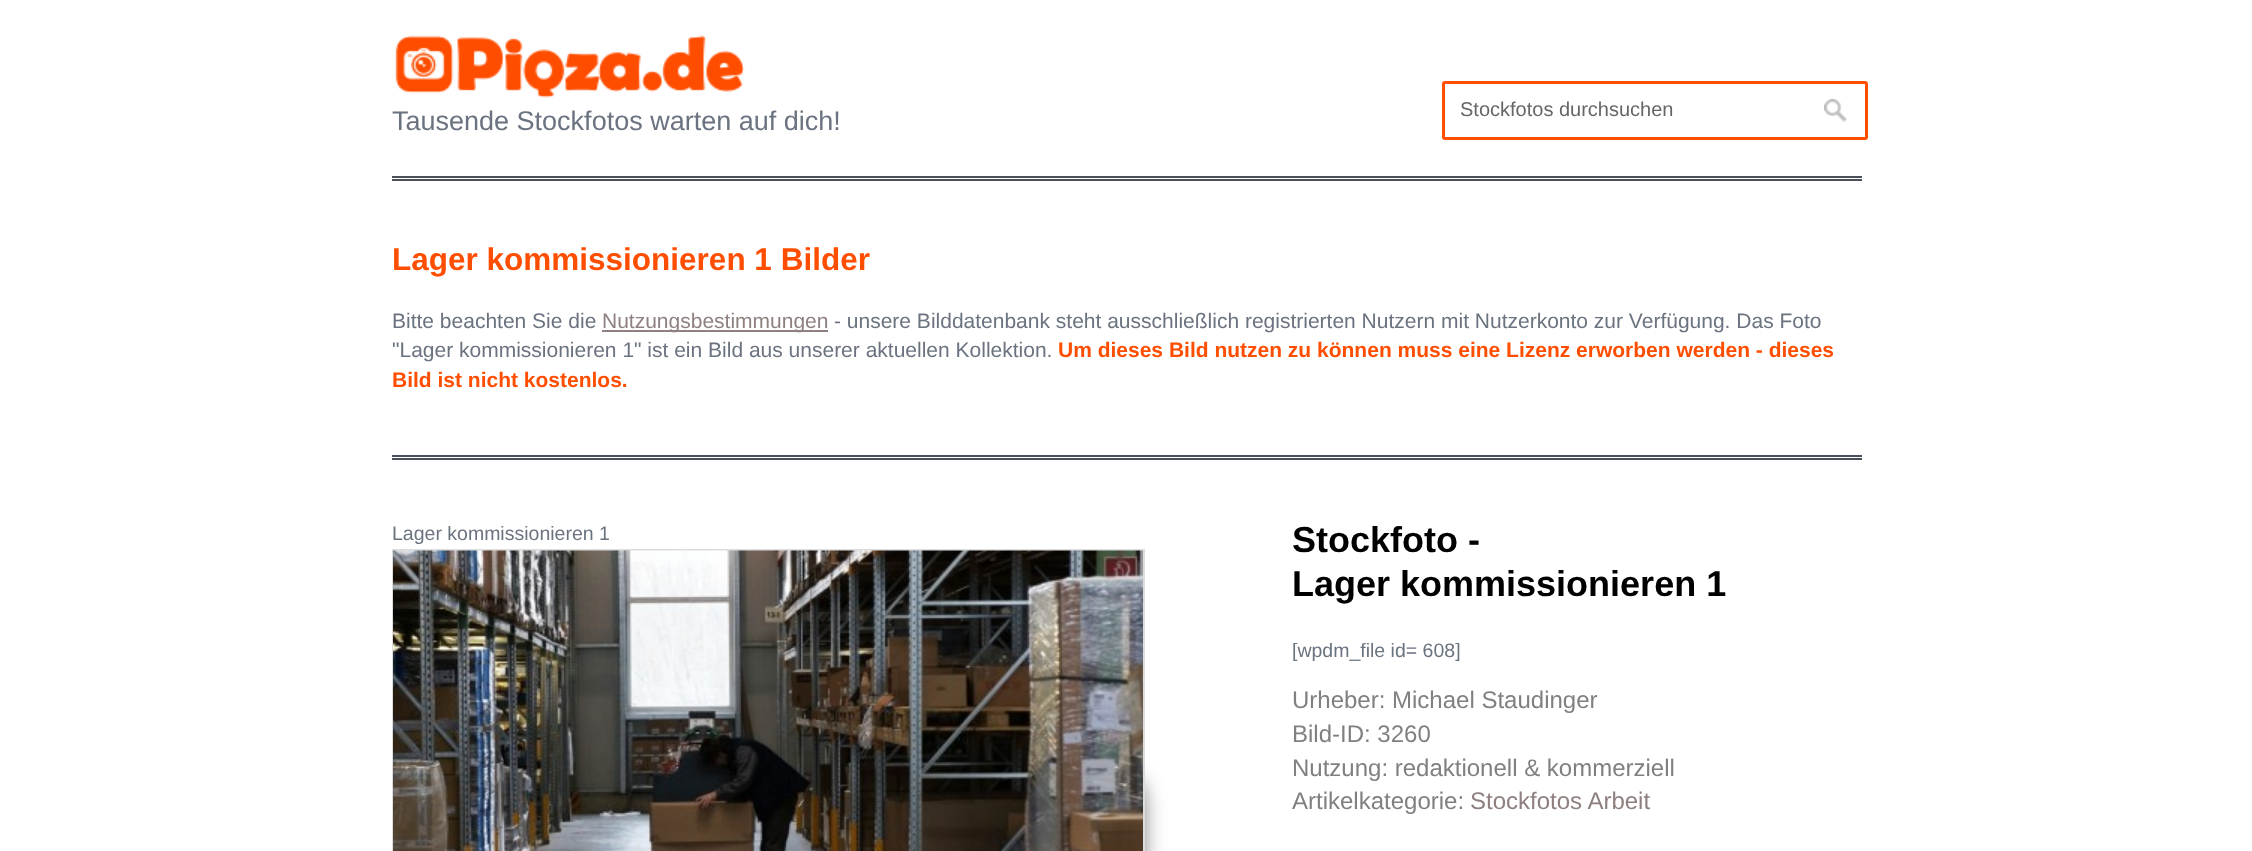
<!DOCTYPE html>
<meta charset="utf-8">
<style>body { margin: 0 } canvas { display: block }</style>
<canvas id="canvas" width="2252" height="851"></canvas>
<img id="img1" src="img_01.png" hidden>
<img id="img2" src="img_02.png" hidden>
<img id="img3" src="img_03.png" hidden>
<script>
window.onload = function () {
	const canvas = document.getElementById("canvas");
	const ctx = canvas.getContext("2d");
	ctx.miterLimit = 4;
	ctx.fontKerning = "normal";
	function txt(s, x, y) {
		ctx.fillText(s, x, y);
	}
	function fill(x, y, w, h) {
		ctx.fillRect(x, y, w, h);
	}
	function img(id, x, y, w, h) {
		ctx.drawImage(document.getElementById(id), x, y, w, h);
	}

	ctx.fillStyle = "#FFFFFF";
	fill(0, 0, 2252, 851);
	ctx.fillStyle = "#4B515A";
	fill(392, 176, 1470, 2);
	fill(392, 179, 1470, 2);
	img("img1", 395, 35, 350, 63);
	ctx.beginPath();
	ctx.roundRect(1443.5, 82.5, 423, 56, 1.5);
	ctx.strokeStyle = "#FF4E00";
	ctx.lineWidth = 3;
	ctx.stroke();
	img("img2", 1824, 99, 23, 23);
	fill(392, 455, 1470, 2);
	fill(392, 458, 1470, 2);
	ctx.fillStyle = "#8F8080";
	fill(602, 330, 226, 2);
	ctx.save();
	ctx.beginPath();
	ctx.rect(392, 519, 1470, 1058);
	ctx.clip();
	ctx.fillStyle = "rgba(0, 0, 0, 0.6)";
	ctx.filter = "blur(11px)";
	ctx.beginPath();
	ctx.roundRect(407, 780, 735, 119, 15);
	ctx.fill();
	ctx.filter = "none";
	ctx.restore();
	ctx.strokeStyle = "#DDDDDD";
	ctx.lineWidth = 2;
	ctx.strokeRect(393, 550, 751, 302);
	img("img3", 393, 550, 750, 301);
	ctx.font = "27px Liberation Sans";
	ctx.fillStyle = "#6A737F";
	txt("Tausende Stockfotos warten auf dich!", 392, 130);
	ctx.font = "20px Liberation Sans";
	ctx.fillStyle = "#666666";
	txt("Stockfotos durchsuchen", 1460, 116);
	ctx.font = "bold 31.5px Liberation Sans";
	ctx.fillStyle = "#FF4E00";
	txt("Lager kommissionieren 1 Bilder", 392, 270);
	ctx.font = "21px Liberation Sans";
	ctx.fillStyle = "#6A737F";
	txt("Bitte beachten Sie die", 392, 328);
	ctx.fillStyle = "#8F8080";
	txt("Nutzungsbestimmungen", 602, 328);
	ctx.fillStyle = "#6A737F";
	txt("- unsere Bilddatenbank steht ausschließlich registrierten Nutzern mit Nutzerkonto zur Verfügung. Das Foto", 834, 328);
	txt("\"Lager kommissionieren 1\" ist ein Bild aus unserer aktuellen Kollektion.", 392, 357);
	ctx.font = "bold 21px Liberation Sans";
	ctx.fillStyle = "#FF4E00";
	txt("Um dieses Bild nutzen zu können muss eine Lizenz erworben werden - dieses", 1058, 357);
	txt("Bild ist nicht kostenlos.", 392, 387);
	ctx.font = "19.5px Liberation Sans";
	ctx.fillStyle = "#6A737F";
	txt("Lager kommissionieren 1", 392, 540);
	ctx.font = "bold 36px Liberation Sans";
	ctx.fillStyle = "#000000";
	txt("Stockfoto -", 1292, 552);
	txt("Lager kommissionieren 1", 1292, 596);
	ctx.font = "19.5px Liberation Sans";
	ctx.fillStyle = "#6A737F";
	txt("[wpdm_file id= 608]", 1292, 657);
	ctx.font = "24px Liberation Sans";
	ctx.fillStyle = "#808080";
	txt("Urheber: Michael Staudinger", 1292, 708);
	txt("Bild-ID: 3260", 1292, 742);
	txt("Nutzung: redaktionell & kommerziell", 1292, 776);
	txt("Artikelkategorie:", 1292, 809);
	ctx.fillStyle = "#8F8080";
	txt("Stockfotos Arbeit", 1470, 809);
};
</script>
